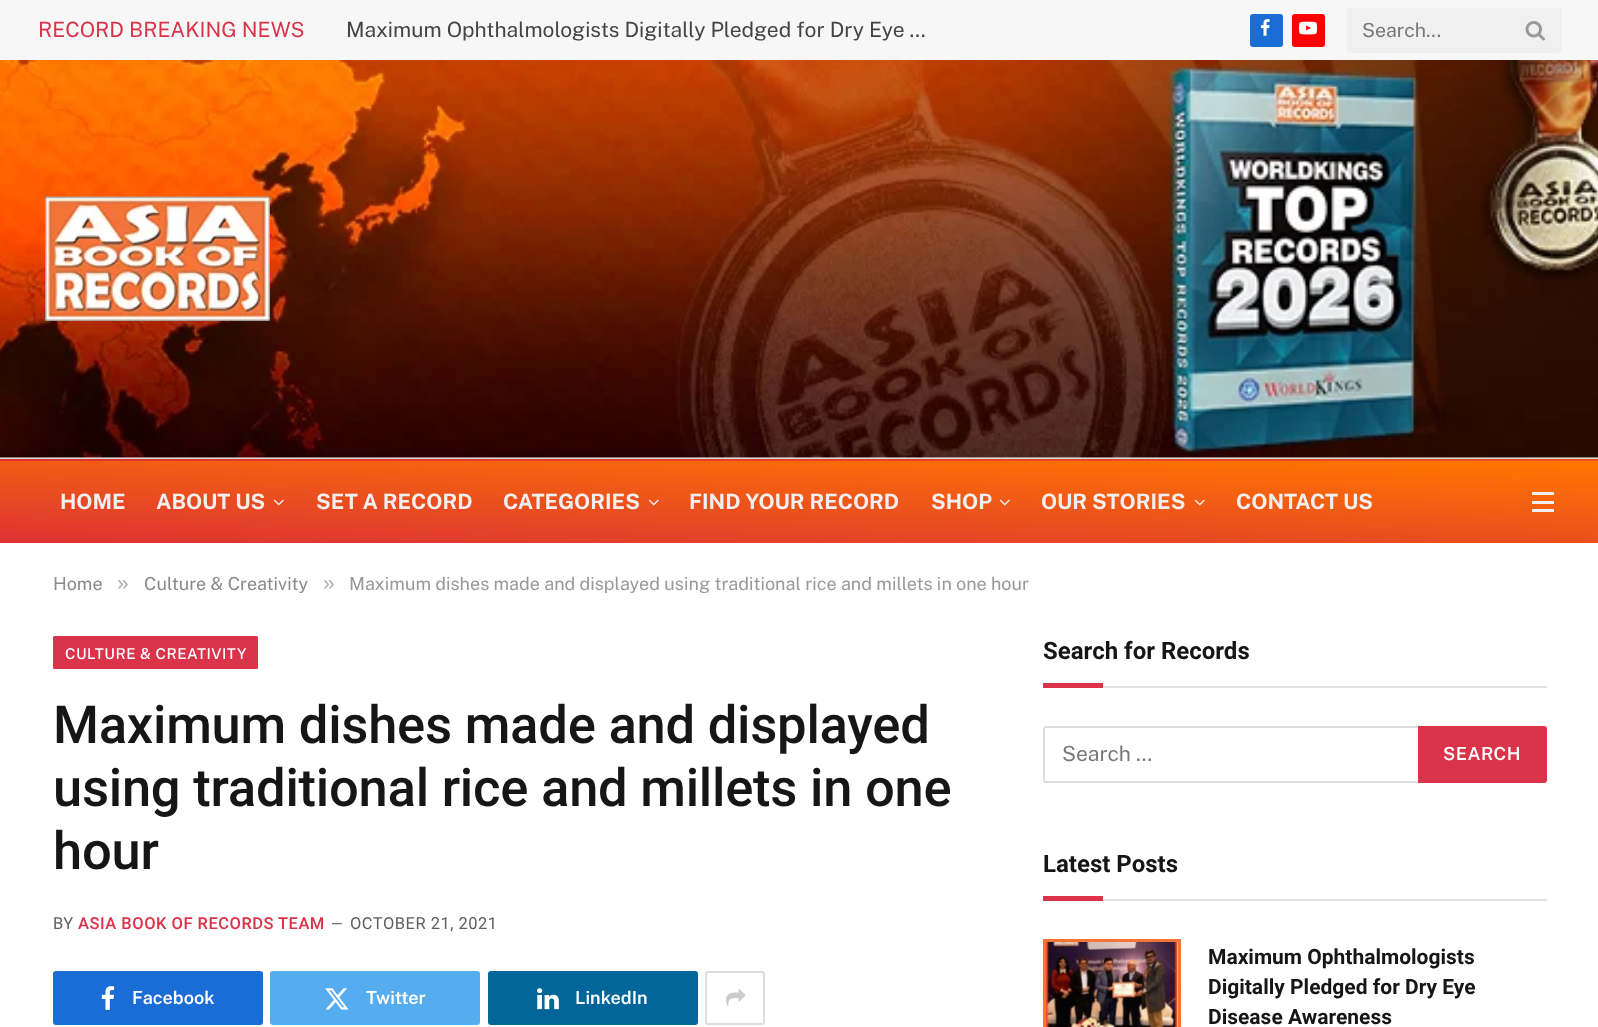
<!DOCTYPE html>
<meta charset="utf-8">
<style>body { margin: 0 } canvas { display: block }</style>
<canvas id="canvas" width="1598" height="1027"></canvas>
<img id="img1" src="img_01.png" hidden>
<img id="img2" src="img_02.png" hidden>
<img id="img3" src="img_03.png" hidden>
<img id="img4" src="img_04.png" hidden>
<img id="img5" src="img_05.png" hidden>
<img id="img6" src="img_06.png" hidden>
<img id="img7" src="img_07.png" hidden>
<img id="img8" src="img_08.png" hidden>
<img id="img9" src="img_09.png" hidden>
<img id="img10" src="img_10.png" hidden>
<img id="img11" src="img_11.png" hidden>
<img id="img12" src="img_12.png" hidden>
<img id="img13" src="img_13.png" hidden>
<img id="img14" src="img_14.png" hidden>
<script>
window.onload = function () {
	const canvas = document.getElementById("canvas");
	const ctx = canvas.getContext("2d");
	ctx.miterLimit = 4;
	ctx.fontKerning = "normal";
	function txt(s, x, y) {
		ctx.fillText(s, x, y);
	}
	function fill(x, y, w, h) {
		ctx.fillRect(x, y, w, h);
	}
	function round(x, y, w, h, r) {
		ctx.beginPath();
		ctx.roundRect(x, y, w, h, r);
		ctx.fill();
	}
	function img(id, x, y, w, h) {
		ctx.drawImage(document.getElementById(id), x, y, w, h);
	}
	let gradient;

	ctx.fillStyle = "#FFFFFF";
	fill(0, 0, 1598, 1027);
	ctx.fillStyle = "#F7F7F7";
	fill(0, 0, 1598, 60);
	ctx.fillStyle = "#1A6DD4";
	round(1250, 14, 33, 33, 3);
	img("img1", 1260, 19, 10, 17);
	ctx.fillStyle = "#FF0000";
	round(1292, 14, 33, 33, 3);
	img("img2", 1299, 21, 18, 14);
	ctx.fillStyle = "#F0F0F0";
	round(1347, 8, 215, 45, 3);
	img("img3", 1525, 21, 20, 20);
	img("img4", 0, 60, 1598, 398);
	ctx.fillStyle = "#D8D8D8";
	fill(0, 458, 1598, 1);
	img("img5", 45, 196, 225, 125);
	gradient = ctx.createLinearGradient(802, 350, 797, 488);
	gradient.addColorStop(0, "#FF7700");
	gradient.addColorStop(1, "#DD3333");
	ctx.fillStyle = gradient;
	fill(0, 459, 1598, 2);
	gradient = ctx.createLinearGradient(802, 433, 797, 571);
	gradient.addColorStop(0, "#FF7700");
	gradient.addColorStop(1, "#DD3333");
	ctx.fillStyle = gradient;
	fill(0, 461, 1598, 82);
	img("img6", 273, 499, 11, 7);
	img("img7", 648, 499, 11, 7);
	img("img8", 999, 499, 11, 7);
	img("img9", 1194, 499, 11, 7);
	ctx.fillStyle = "#F0F0F0";
	fill(1532, 509, 22, 3);
	fill(1532, 492, 22, 3);
	fill(1532, 501, 22, 3);
	ctx.fillStyle = "#DA334A";
	round(53, 636, 205, 33, 1.5);
	ctx.fillStyle = "#1A6DD4";
	round(53, 971, 210, 54, 3);
	img("img10", 101, 986, 14, 24);
	ctx.fillStyle = "#55ACEF";
	round(270, 971, 210, 54, 3);
	img("img11", 325, 988, 24, 22);
	ctx.fillStyle = "#02669A";
	round(488, 971, 210, 54, 3);
	img("img12", 537, 988, 22, 22);
	ctx.beginPath();
	ctx.roundRect(706, 972, 58, 52, 2);
	ctx.strokeStyle = "#DDDDDD";
	ctx.lineWidth = 2;
	ctx.stroke();
	img("img13", 726, 989, 20, 18);
	ctx.fillStyle = "#E2E2E2";
	fill(1103, 686, 444, 2);
	ctx.fillStyle = "#DA334A";
	fill(1043, 683, 60, 5);
	ctx.beginPath();
	ctx.roundRect(1044, 727, 376, 55, 2);
	ctx.stroke();
	ctx.beginPath();
	ctx.roundRect(1418, 726, 129, 57, [0, 3, 3, 0]);
	ctx.fill();
	ctx.fillStyle = "#E2E2E2";
	fill(1103, 899, 444, 2);
	ctx.fillStyle = "#DA334A";
	fill(1043, 896, 60, 5);
	img("img14", 1046, 942, 132, 85);
	ctx.strokeStyle = "#F27439";
	ctx.lineWidth = 3;
	ctx.strokeRect(1044.5, 940.5, 135, 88);
	ctx.font = "21px Public Sans";
	txt("RECORD BREAKING NEWS", 38, 37);
	ctx.fillStyle = "#444444";
	txt("Maximum Ophthalmologists Digitally Pledged for Dry Eye …", 346, 37);
	ctx.font = "19.5px Public Sans";
	ctx.fillStyle = "#777777";
	txt("Search...", 1362, 37);
	ctx.font = "bold 21.25px Public Sans";
	ctx.fillStyle = "#F0F0F0";
	txt("HOME", 60, 509);
	txt("ABOUT US", 156, 509);
	txt("SET A RECORD", 316, 509);
	txt("CATEGORIES", 503, 509);
	txt("FIND YOUR RECORD", 689, 509);
	txt("SHOP", 931, 509);
	txt("OUR STORIES", 1041, 509);
	txt("CONTACT US", 1236, 509);
	ctx.font = "18px Public Sans";
	ctx.fillStyle = "#8A8A8A";
	txt("Home", 53, 590);
	ctx.font = "21px Liberation Sans";
	ctx.fillStyle = "#ADADAD";
	txt("»", 117, 590);
	ctx.font = "18px Public Sans";
	ctx.fillStyle = "#8A8A8A";
	txt("Culture & Creativity", 144, 590);
	ctx.font = "21px Liberation Sans";
	ctx.fillStyle = "#ADADAD";
	txt("»", 323, 590);
	ctx.font = "18px Public Sans";
	ctx.fillStyle = "#999999";
	txt("Maximum dishes made and displayed using traditional rice and millets in one hour", 349, 590);
	ctx.letterSpacing = "0.5px";
	ctx.font = "500 15px Public Sans";
	ctx.fillStyle = "#FFFFFF";
	txt("CULTURE & CREATIVITY", 65, 659);
	ctx.letterSpacing = "-0.25px";
	ctx.font = "500 52.5px Roboto";
	ctx.fillStyle = "#161616";
	txt("Maximum dishes made and displayed", 53, 743);
	txt("using traditional rice and millets in one", 53, 806);
	txt("hour", 53, 869);
	ctx.letterSpacing = "0.5px";
	ctx.font = "16.5px Roboto";
	ctx.fillStyle = "#606060";
	txt("BY", 53, 929);
	ctx.font = "500 16.5px Roboto";
	ctx.fillStyle = "#DA334A";
	txt("ASIA BOOK OF RECORDS TEAM", 78, 929);
	ctx.font = "15px Roboto";
	ctx.fillStyle = "#606060";
	txt("—", 331, 929);
	ctx.font = "16.5px Roboto";
	txt("OCTOBER 21, 2021", 350, 929);
	ctx.letterSpacing = "0px";
	ctx.font = "600 18px Public Sans";
	ctx.fillStyle = "#FFFFFF";
	txt("Facebook", 132, 1004);
	txt("Twitter", 366, 1004);
	txt("LinkedIn", 575, 1004);
	ctx.font = "bold 24px Roboto";
	ctx.fillStyle = "#161616";
	txt("Search for Records", 1043, 659);
	ctx.font = "21px Public Sans";
	ctx.fillStyle = "#777777";
	txt("Search …", 1062, 761);
	ctx.letterSpacing = "0.5px";
	ctx.font = "600 18px Public Sans";
	ctx.fillStyle = "#FFFFFF";
	txt("SEARCH", 1443, 760);
	ctx.letterSpacing = "0px";
	ctx.font = "bold 24px Roboto";
	ctx.fillStyle = "#161616";
	txt("Latest Posts", 1043, 872);
	ctx.font = "bold 21px Roboto";
	txt("Maximum Ophthalmologists", 1208, 964);
	txt("Digitally Pledged for Dry Eye", 1208, 994);
	txt("Disease Awareness", 1208, 1024);
};
</script>
